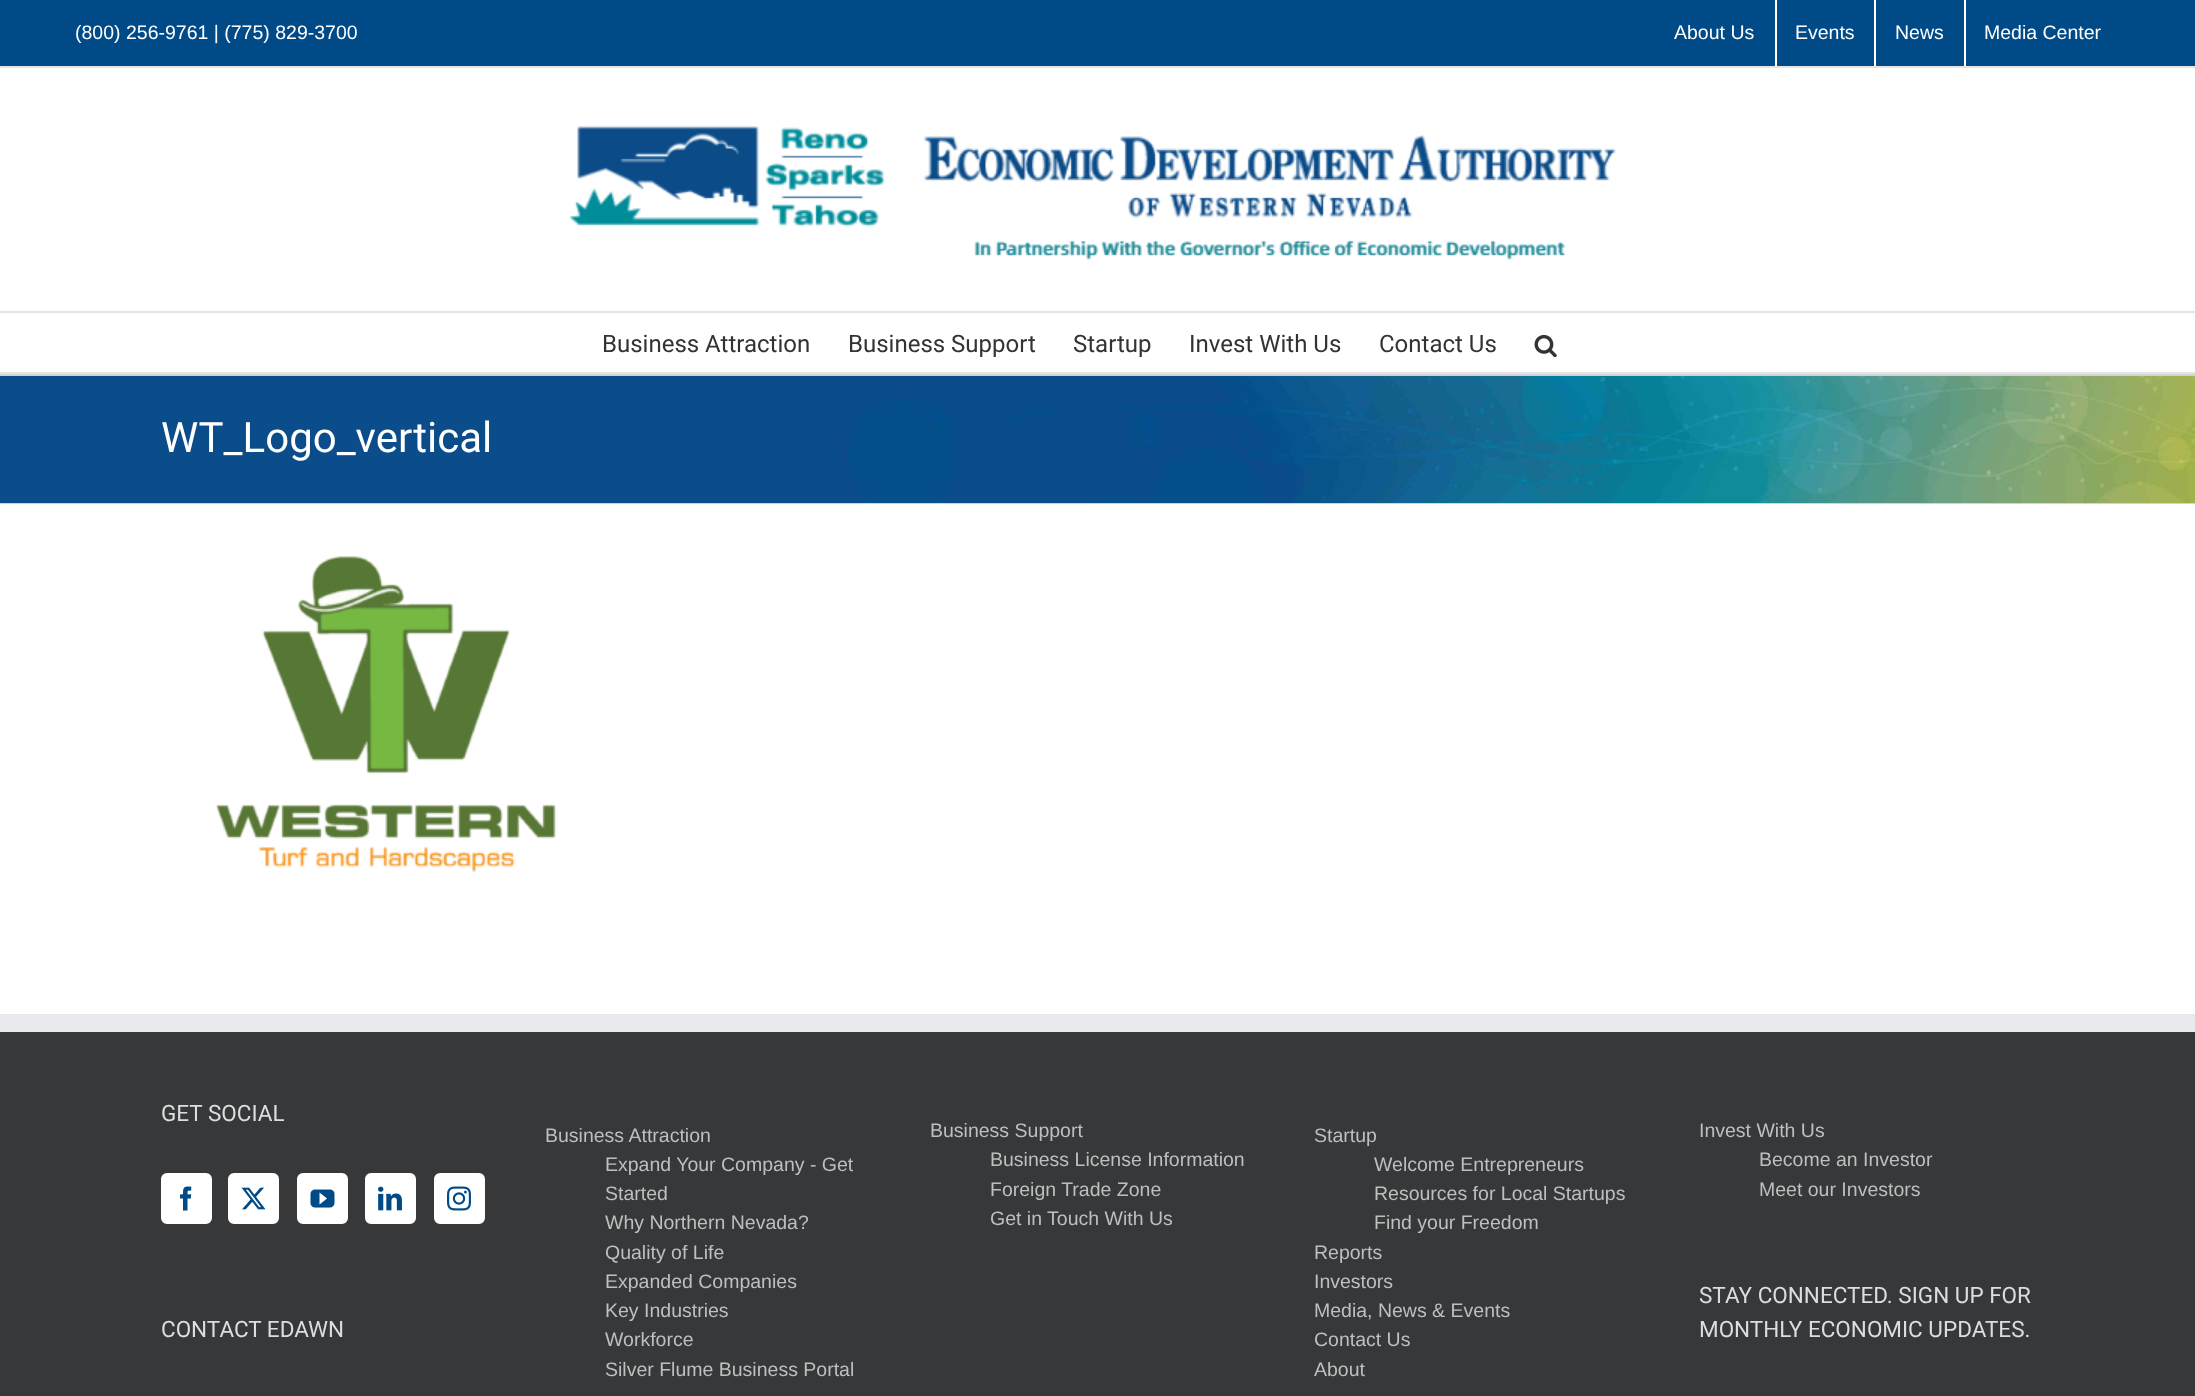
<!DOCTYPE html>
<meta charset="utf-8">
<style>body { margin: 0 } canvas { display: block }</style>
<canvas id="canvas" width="2195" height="1396"></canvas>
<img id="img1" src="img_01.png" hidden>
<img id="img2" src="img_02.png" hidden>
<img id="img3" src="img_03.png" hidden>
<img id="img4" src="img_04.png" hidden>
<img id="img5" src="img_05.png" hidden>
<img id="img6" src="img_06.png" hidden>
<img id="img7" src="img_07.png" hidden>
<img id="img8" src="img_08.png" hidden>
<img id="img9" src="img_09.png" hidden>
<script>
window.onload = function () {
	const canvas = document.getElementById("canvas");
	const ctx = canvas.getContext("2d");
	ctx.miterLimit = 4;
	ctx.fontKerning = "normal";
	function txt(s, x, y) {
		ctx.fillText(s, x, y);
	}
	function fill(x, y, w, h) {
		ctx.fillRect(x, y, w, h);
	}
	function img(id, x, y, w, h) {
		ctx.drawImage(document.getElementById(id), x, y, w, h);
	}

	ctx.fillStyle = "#FFFFFF";
	fill(0, 0, 2195, 1396);
	ctx.fillStyle = "#004A87";
	fill(0, 0, 2195, 66);
	ctx.fillStyle = "#E5E5E5";
	fill(0, 66, 2195, 2);
	ctx.fillStyle = "#FFFFFF";
	fill(1775, 0, 2, 66);
	fill(1874, 0, 2, 66);
	fill(1964, 0, 2, 66);
	ctx.fillStyle = "#E5E5E5";
	fill(0, 311, 2195, 2);
	img("img1", 569, 125, 1047, 135);
	fill(0, 372, 2195, 2);
	img("img2", 1534, 334, 23, 24);
	img("img3", 0, 376, 2195, 127);
	ctx.fillStyle = "#D2D3D4";
	fill(0, 374, 2195, 2);
	fill(0, 503, 2195, 1);
	img("img4", 215, 556, 341, 316);
	ctx.fillStyle = "#363839";
	fill(0, 1032, 2195, 364);
	ctx.fillStyle = "#E9EAEE";
	fill(0, 1014, 2195, 18);
	ctx.fillStyle = "#FFFFFF";
	ctx.beginPath();
	ctx.roundRect(162, 1174, 49, 49, 5);
	ctx.fill();
	ctx.strokeStyle = "#FFFFFF";
	ctx.lineWidth = 2;
	ctx.stroke();
	img("img5", 180, 1186, 12, 25);
	ctx.beginPath();
	ctx.roundRect(229, 1174, 49, 49, 5);
	ctx.fill();
	ctx.stroke();
	img("img6", 241, 1187, 25, 23);
	ctx.beginPath();
	ctx.roundRect(298, 1174, 49, 49, 5);
	ctx.fill();
	ctx.stroke();
	img("img7", 310, 1189, 25, 19);
	ctx.beginPath();
	ctx.roundRect(366, 1174, 49, 49, 5);
	ctx.fill();
	ctx.stroke();
	img("img8", 378, 1186, 24, 25);
	ctx.beginPath();
	ctx.roundRect(435, 1174, 49, 49, 5);
	ctx.fill();
	ctx.stroke();
	img("img9", 447, 1186, 24, 25);
	ctx.font = "19.5px Liberation Sans";
	txt("(800) 256-9761 | (775) 829-3700", 75, 39);
	txt("About Us", 1674, 39);
	txt("Events", 1795, 39);
	txt("News", 1895, 39);
	txt("Media Center", 1984, 39);
	ctx.font = "24px Roboto";
	ctx.fillStyle = "#333333";
	txt("Business Attraction", 602, 352);
	txt("Business Support", 848, 352);
	txt("Startup", 1073, 352);
	txt("Invest With Us", 1189, 352);
	txt("Contact Us", 1379, 352);
	ctx.font = "42px Roboto";
	ctx.fillStyle = "#FFFFFF";
	txt("WT_Logo_vertical", 161, 452);
	ctx.font = "22.5px Roboto";
	ctx.fillStyle = "#DDDDDD";
	txt("GET SOCIAL", 161, 1121);
	txt("CONTACT EDAWN", 161, 1337);
	ctx.font = "19.5px Liberation Sans";
	ctx.fillStyle = "#BFBFBF";
	txt("Business Attraction", 545, 1142);
	txt("Expand Your Company - Get", 605, 1171);
	txt("Started", 605, 1200);
	txt("Why Northern Nevada?", 605, 1229);
	txt("Quality of Life", 605, 1259);
	txt("Expanded Companies", 605, 1288);
	txt("Key Industries", 605, 1317);
	txt("Workforce", 605, 1346);
	txt("Silver Flume Business Portal", 605, 1376);
	txt("Business Support", 930, 1137);
	txt("Business License Information", 990, 1166);
	txt("Foreign Trade Zone", 990, 1196);
	txt("Get in Touch With Us", 990, 1225);
	txt("Startup", 1314, 1142);
	txt("Welcome Entrepreneurs", 1374, 1171);
	txt("Resources for Local Startups", 1374, 1200);
	txt("Find your Freedom", 1374, 1229);
	txt("Reports", 1314, 1259);
	txt("Investors", 1314, 1288);
	txt("Media, News & Events", 1314, 1317);
	txt("Contact Us", 1314, 1346);
	txt("About", 1314, 1376);
	txt("Invest With Us", 1699, 1137);
	txt("Become an Investor", 1759, 1166);
	txt("Meet our Investors", 1759, 1196);
	ctx.font = "22.5px Roboto";
	ctx.fillStyle = "#DDDDDD";
	txt("STAY CONNECTED. SIGN UP FOR", 1699, 1303);
	txt("MONTHLY ECONOMIC UPDATES.", 1699, 1337);
};
</script>
